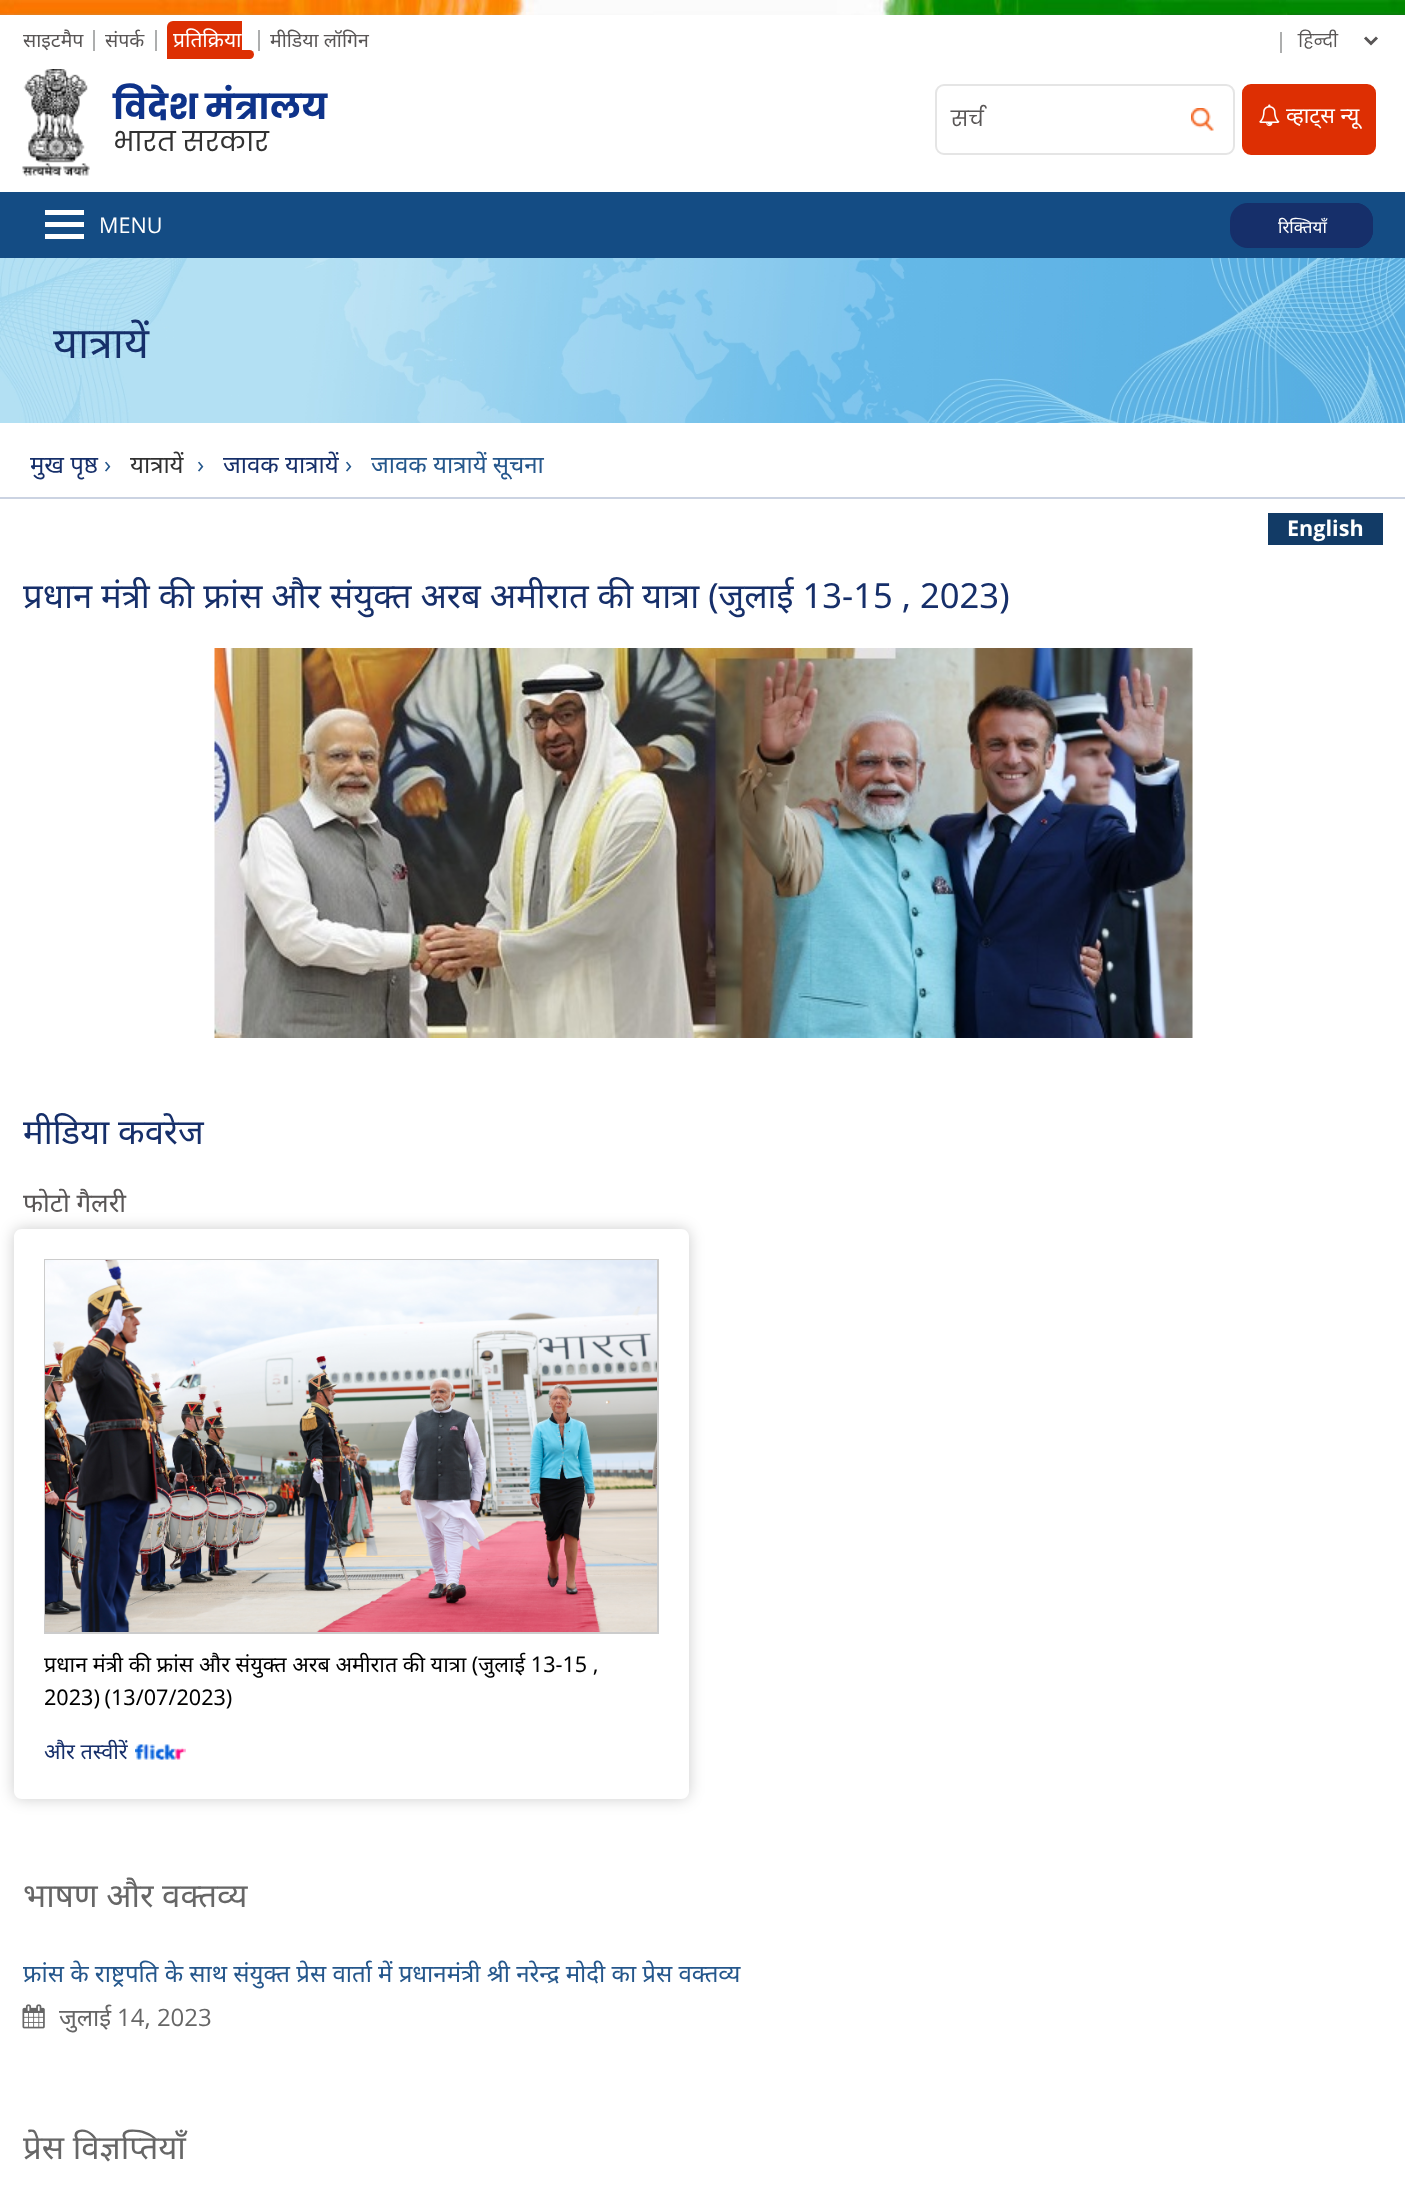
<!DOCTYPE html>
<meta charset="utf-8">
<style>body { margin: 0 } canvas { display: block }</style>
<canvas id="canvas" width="1405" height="2192"></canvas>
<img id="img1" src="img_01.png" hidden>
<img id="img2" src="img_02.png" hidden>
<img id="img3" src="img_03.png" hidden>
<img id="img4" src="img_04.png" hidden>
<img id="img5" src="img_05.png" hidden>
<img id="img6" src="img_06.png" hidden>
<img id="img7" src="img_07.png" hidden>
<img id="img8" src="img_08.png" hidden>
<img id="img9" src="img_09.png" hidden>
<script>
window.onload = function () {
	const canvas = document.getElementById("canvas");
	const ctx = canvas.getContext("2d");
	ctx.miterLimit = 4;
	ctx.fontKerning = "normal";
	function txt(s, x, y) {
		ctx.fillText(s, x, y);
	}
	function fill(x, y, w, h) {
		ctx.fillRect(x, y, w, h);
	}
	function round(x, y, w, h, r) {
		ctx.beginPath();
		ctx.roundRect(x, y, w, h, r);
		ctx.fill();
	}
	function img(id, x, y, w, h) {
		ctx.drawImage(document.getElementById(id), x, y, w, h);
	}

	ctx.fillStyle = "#FFFFFF";
	fill(0, 0, 1405, 2192);
	img("img1", 0, 0, 1405, 15);
	ctx.fillStyle = "#ADAEAE";
	fill(93, 30, 2, 21);
	fill(155, 30, 2, 21);
	ctx.fillStyle = "#DD2F03";
	ctx.beginPath();
	ctx.roundRect(167, 21, 75, 35, [6, 0, 0, 6]);
	ctx.fill();
	ctx.beginPath();
	ctx.roundRect(167, 50, 87, 9, [0, 4.5, 4.5, 0]);
	ctx.fill();
	ctx.fillStyle = "#ADAEAE";
	fill(258, 30, 2, 21);
	fill(1280, 32, 2, 21);
	ctx.beginPath();
	ctx.moveTo(1365, 37.5);
	ctx.lineTo(1371, 43.5);
	ctx.lineTo(1377, 37.5);
	ctx.strokeStyle = "#595656";
	ctx.lineWidth = 3;
	ctx.stroke();
	img("img2", 22, 69, 68, 108);
	ctx.beginPath();
	ctx.roundRect(936, 85, 298, 69, 8);
	ctx.strokeStyle = "#E5E5E5";
	ctx.lineWidth = 2;
	ctx.stroke();
	img("img3", 1191, 108, 23, 23);
	ctx.fillStyle = "#DD2F03";
	ctx.beginPath();
	ctx.roundRect(1243, 85, 132, 69, 8);
	ctx.fill();
	ctx.strokeStyle = "#DD2F03";
	ctx.stroke();
	img("img4", 1259, 104, 21, 23);
	ctx.fillStyle = "#144C84";
	fill(0, 192, 1405, 66);
	ctx.fillStyle = "#FFFFFF";
	fill(45, 222, 39, 5);
	fill(45, 210, 39, 5);
	fill(45, 234, 39, 5);
	ctx.fillStyle = "#162F6A";
	round(1230, 203, 143, 45, 18);
	round(1233, 203, 140, 45, 18);
	img("img5", 0, 258, 1405, 165);
	ctx.fillStyle = "#CBD3E2";
	fill(0, 497, 1405, 2);
	ctx.fillStyle = "#123B66";
	fill(1268, 513, 115, 32);
	img("img6", 214, 648, 979, 390);
	ctx.save();
	ctx.beginPath();
	ctx.moveTo(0, 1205);
	ctx.lineTo(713, 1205);
	ctx.lineTo(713, 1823);
	ctx.lineTo(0, 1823);
	ctx.closePath();
	ctx.moveTo(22, 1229);
	ctx.lineTo(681, 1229);
	ctx.bezierCurveTo(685.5, 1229, 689, 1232.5, 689, 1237);
	ctx.lineTo(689, 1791);
	ctx.bezierCurveTo(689, 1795.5, 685.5, 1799, 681, 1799);
	ctx.lineTo(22, 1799);
	ctx.bezierCurveTo(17.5, 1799, 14, 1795.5, 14, 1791);
	ctx.lineTo(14, 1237);
	ctx.bezierCurveTo(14, 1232.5, 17.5, 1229, 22, 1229);
	ctx.closePath();
	ctx.clip("evenodd");
	ctx.fillStyle = "rgba(0, 0, 0, 0.2)";
	ctx.filter = "blur(7.5px)";
	ctx.beginPath();
	ctx.roundRect(14, 1229, 675, 570, 8);
	ctx.fill();
	ctx.filter = "none";
	ctx.restore();
	ctx.strokeStyle = "#CCCCCC";
	ctx.strokeRect(45, 1260, 613, 373);
	img("img7", 45, 1260, 612, 372);
	img("img8", 135, 1744, 51, 16);
	img("img9", 22, 2004, 23, 25);
	ctx.font = "19.5px Noto Sans";
	ctx.fillStyle = "#595656";
	txt("साइटमैप", 23, 47);
	txt("संपर्क", 105, 47);
	ctx.font = "21px Noto Sans";
	ctx.fillStyle = "#FFFFFF";
	txt("प्रतिक्रिया", 173, 47);
	ctx.font = "19.5px Noto Sans";
	ctx.fillStyle = "#595656";
	txt("मीडिया लॉगिन", 270, 47);
	ctx.font = "17.5px Poppins";
	txt("हिन्दी", 1298, 47);
	ctx.font = "bold 34.5px Poppins";
	ctx.fillStyle = "#0E338A";
	txt("विदेश मंत्रालय", 113, 119);
	ctx.font = "27px Poppins";
	ctx.fillStyle = "#313131";
	txt("भारत सरकार", 113, 151);
	ctx.font = "21px Poppins";
	ctx.fillStyle = "#595656";
	txt("सर्च", 951, 126);
	ctx.font = "21.6px Noto Sans";
	ctx.fillStyle = "#FFFFFF";
	txt("व्हाट्स न्यू", 1286, 123);
	ctx.font = "21.6px Open Sans";
	txt("MENU", 99, 233);
	ctx.font = "17px Noto Sans";
	txt("रिक्तियाँ", 1278, 233);
	ctx.font = "43px Noto Sans";
	ctx.fillStyle = "#162F6A";
	txt("यात्रायें", 53, 358);
	ctx.font = "24px Noto Sans";
	txt("मुख पृष्ठ", 30, 473);
	ctx.font = "24px Open Sans";
	ctx.fillStyle = "#25578C";
	txt("›", 104, 473);
	ctx.font = "24px Noto Sans";
	ctx.fillStyle = "#313131";
	txt("यात्रायें", 130, 473);
	ctx.font = "24px Open Sans";
	ctx.fillStyle = "#25578C";
	txt("›", 197, 473);
	ctx.font = "24px Noto Sans";
	ctx.fillStyle = "#162F6A";
	txt("जावक यात्रायें", 223, 473);
	ctx.font = "24px Open Sans";
	ctx.fillStyle = "#25578C";
	txt("›", 345, 473);
	ctx.font = "24px Noto Sans";
	txt("जावक यात्रायें सूचना", 371, 473);
	ctx.font = "bold 21.6px Open Sans";
	ctx.fillStyle = "#FFFFFF";
	txt("English", 1287, 536);
	ctx.font = "34.6px Noto Sans";
	ctx.fillStyle = "#162F6A";
	txt("प्रधान मंत्री की फ्रांस और संयुक्त अरब अमीरात की यात्रा (जुलाई 13-15 , 2023)", 23, 608);
	txt("मीडिया कवरेज", 23, 1144);
	ctx.font = "26px Noto Sans";
	ctx.fillStyle = "#595656";
	txt("फोटो गैलरी", 23, 1212);
	ctx.font = "21.6px Noto Sans";
	ctx.fillStyle = "#000000";
	txt("प्रधान मंत्री की फ्रांस और संयुक्त अरब अमीरात की यात्रा (जुलाई 13-15 ,", 44, 1672);
	ctx.wordSpacing = "-1px";
	txt("2023) (13/07/2023)", 44, 1705);
	ctx.wordSpacing = "0px";
	ctx.fillStyle = "#162F6A";
	txt("और तस्वीरें", 44, 1759);
	ctx.font = "33px Noto Sans";
	ctx.fillStyle = "#666666";
	txt("भाषण और वक्तव्य", 23, 1907);
	ctx.font = "24px Noto Sans";
	ctx.fillStyle = "#25578C";
	txt("फ्रांस के राष्ट्रपति के साथ संयुक्त प्रेस वार्ता में प्रधानमंत्री श्री नरेन्द्र मोदी का प्रेस वक्तव्य", 23, 1982);
	ctx.fillStyle = "#666666";
	txt("जुलाई", 59, 2026);
	ctx.font = "24px Open Sans";
	txt("14, 2023", 117, 2026);
	ctx.font = "33px Noto Sans";
	txt("प्रेस विज्ञप्तियाँ", 23, 2159);
};
</script>
